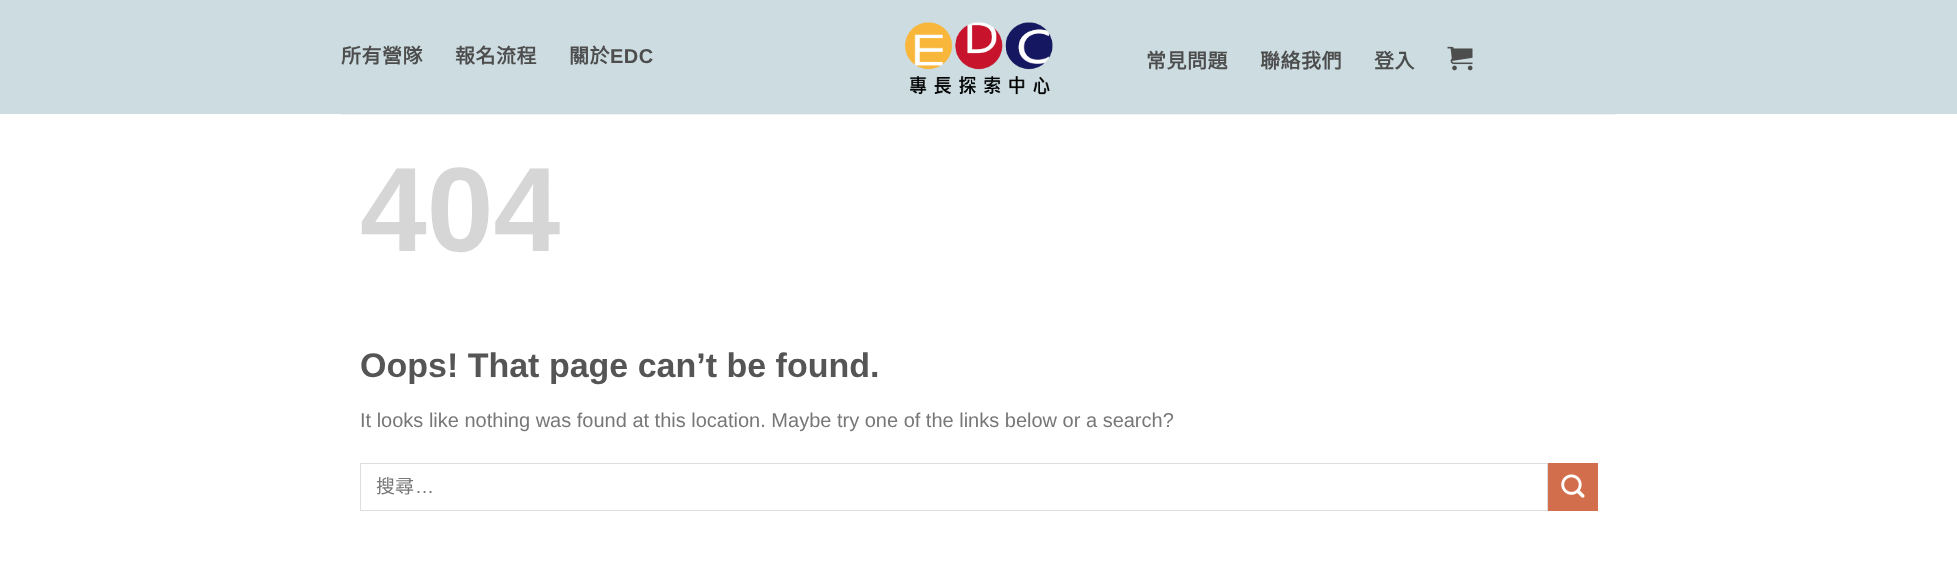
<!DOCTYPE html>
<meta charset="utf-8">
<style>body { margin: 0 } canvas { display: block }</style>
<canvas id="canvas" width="1957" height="561"></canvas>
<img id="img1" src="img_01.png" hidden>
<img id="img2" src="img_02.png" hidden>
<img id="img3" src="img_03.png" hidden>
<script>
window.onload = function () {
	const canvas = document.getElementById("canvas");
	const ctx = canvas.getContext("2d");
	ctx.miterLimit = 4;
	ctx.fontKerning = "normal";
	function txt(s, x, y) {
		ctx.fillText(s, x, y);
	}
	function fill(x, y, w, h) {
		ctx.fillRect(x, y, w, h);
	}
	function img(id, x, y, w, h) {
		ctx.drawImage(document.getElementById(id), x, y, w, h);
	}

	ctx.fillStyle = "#FFFFFF";
	fill(0, 0, 1957, 561);
	ctx.fillStyle = "#CCDCE1";
	fill(0, 0, 1957, 114);
	img("img1", 905, 22, 148, 73);
	img("img2", 1447, 46, 26, 25);
	ctx.fillStyle = "#F1F1F1";
	fill(341, 114, 1275, 1);
	ctx.strokeStyle = "#DDDDDD";
	ctx.strokeRect(360.5, 463.5, 1187, 47);
	ctx.fillStyle = "#D26E4B";
	fill(1548, 463, 50, 48);
	img("img3", 1561, 474, 24, 24);
	ctx.letterSpacing = "0.5px";
	ctx.font = "bold 20px Noto Sans CJK TC";
	ctx.fillStyle = "#4D4D4D";
	txt("所有營隊", 341, 63);
	txt("報名流程", 455, 63);
	txt("關於", 569, 63);
	ctx.font = "bold 20px Liberation Sans";
	txt("EDC", 610, 63);
	ctx.font = "bold 20px Noto Sans CJK TC";
	txt("常見問題", 1146, 68);
	txt("聯絡我們", 1260, 68);
	txt("登入", 1374, 68);
	ctx.letterSpacing = "0px";
	ctx.font = "bold 120px Liberation Sans";
	ctx.fillStyle = "#D6D6D6";
	txt("404", 360, 251);
	ctx.font = "bold 34px Liberation Sans";
	ctx.fillStyle = "#555555";
	txt("Oops! That page can’t be found.", 360, 377);
	ctx.font = "20px Liberation Sans";
	ctx.fillStyle = "#777777";
	txt("It looks like nothing was found at this location. Maybe try one of the links below or a search?", 360, 427);
	ctx.font = "19px Noto Sans CJK TC";
	txt("搜尋", 376, 493);
	ctx.font = "19px Liberation Sans";
	txt("…", 415, 493);
};
</script>
